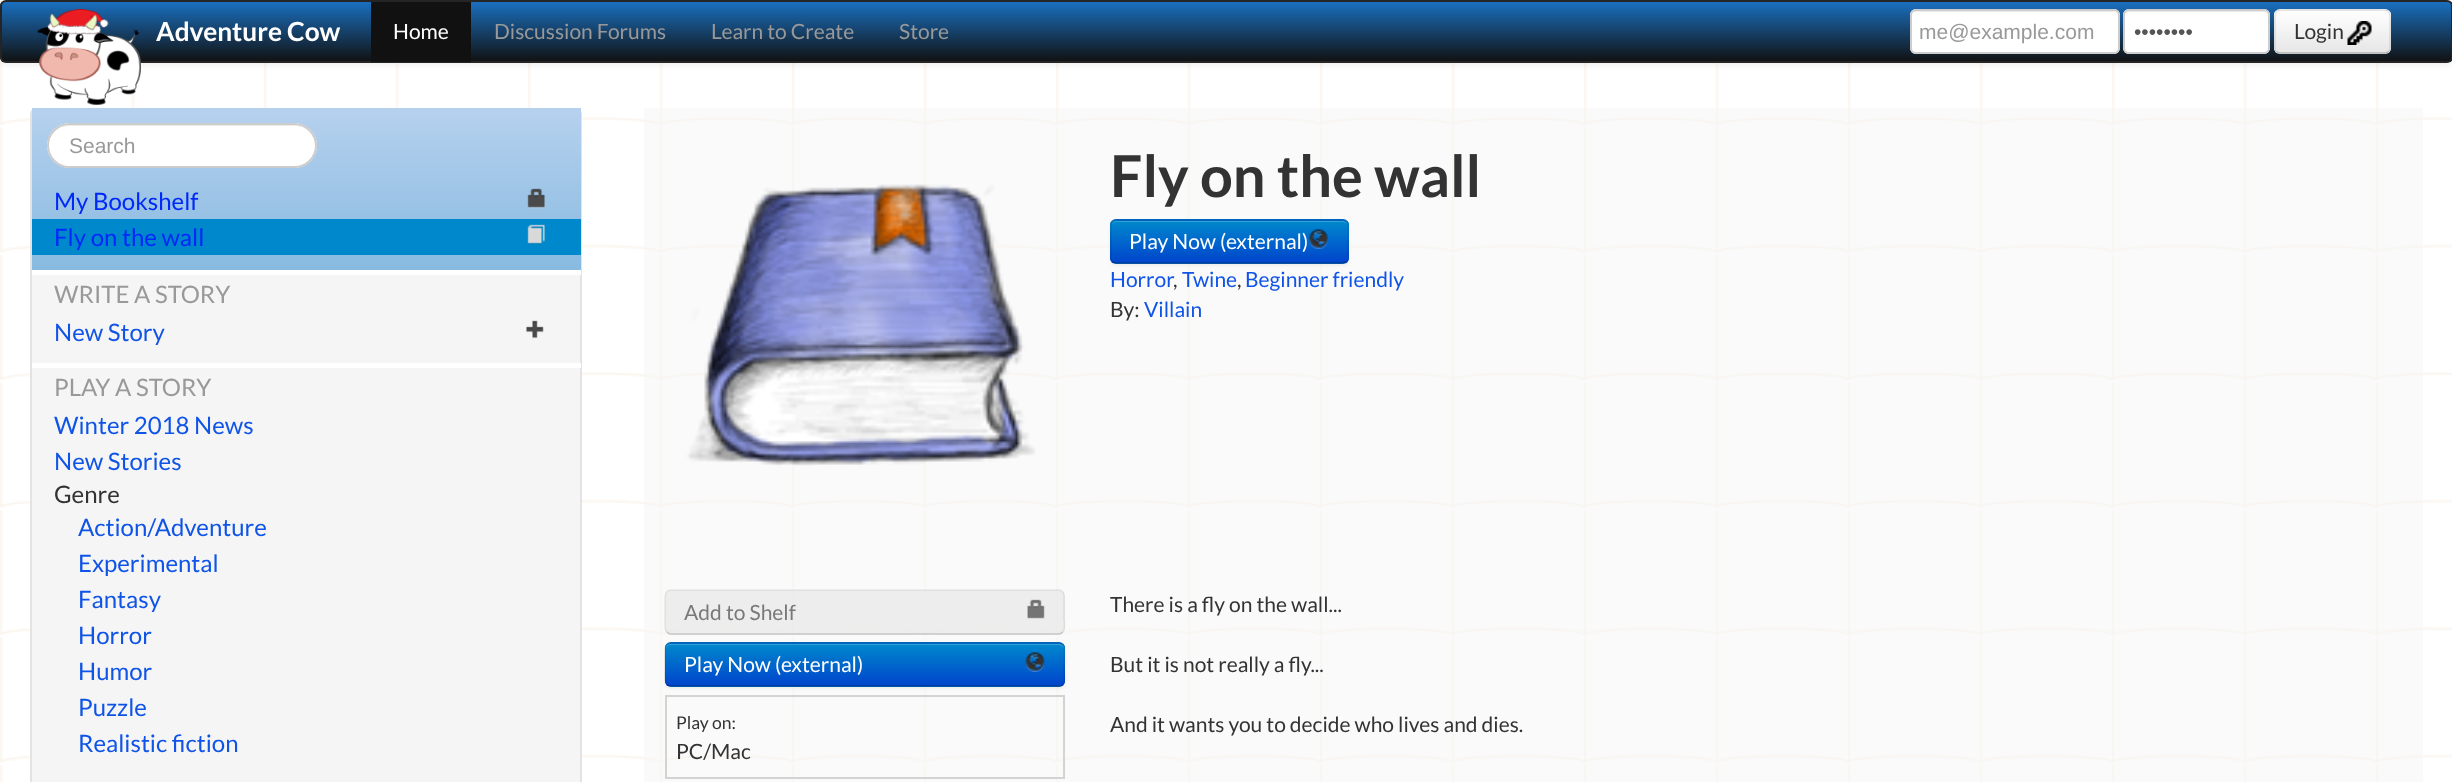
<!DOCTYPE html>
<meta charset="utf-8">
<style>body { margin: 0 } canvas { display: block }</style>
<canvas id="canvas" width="2452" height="782"></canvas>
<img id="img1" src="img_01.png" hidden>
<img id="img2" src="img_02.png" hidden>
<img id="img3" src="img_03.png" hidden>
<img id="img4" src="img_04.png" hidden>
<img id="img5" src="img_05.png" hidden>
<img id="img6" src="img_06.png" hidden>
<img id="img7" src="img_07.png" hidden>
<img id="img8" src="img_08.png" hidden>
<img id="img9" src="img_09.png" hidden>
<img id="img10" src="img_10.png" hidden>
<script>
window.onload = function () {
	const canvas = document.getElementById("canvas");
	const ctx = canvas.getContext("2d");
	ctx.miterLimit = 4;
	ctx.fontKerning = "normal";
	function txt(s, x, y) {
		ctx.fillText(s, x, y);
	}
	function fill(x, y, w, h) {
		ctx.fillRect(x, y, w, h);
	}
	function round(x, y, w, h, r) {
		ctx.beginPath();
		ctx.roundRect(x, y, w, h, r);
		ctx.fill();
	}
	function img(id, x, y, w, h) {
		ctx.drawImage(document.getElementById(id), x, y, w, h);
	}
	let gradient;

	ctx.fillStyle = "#FFFFFF";
	fill(0, 0, 2452, 782);
	img("img1", 0, 0, 2452, 782);
	ctx.fillStyle = "rgba(0, 0, 0, 0.07)";
	ctx.filter = "blur(3px)";
	ctx.beginPath();
	ctx.roundRect(0, 2, 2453, 63, 6);
	ctx.fill();
	ctx.filter = "none";
	ctx.save();
	ctx.beginPath();
	ctx.roundRect(0, 0, 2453, 63, 6);
	ctx.clip();
	gradient = ctx.createLinearGradient(1226, 1.5, 1226, 62);
	gradient.addColorStop(0, "#1A70C0");
	gradient.addColorStop(1, "#111111");
	ctx.fillStyle = gradient;
	fill(0, 2, 2452, 60);
	ctx.restore();
	ctx.beginPath();
	ctx.roundRect(1, 1, 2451, 61, 5);
	ctx.strokeStyle = "#252525";
	ctx.lineWidth = 2;
	ctx.stroke();
	img("img2", 37, 9, 104, 96);
	ctx.fillStyle = "#111111";
	fill(371, 2, 100, 60);
	ctx.fillStyle = "#FFFFFF";
	round(1910, 9, 210, 45, 6);
	ctx.fillStyle = "#ECECEC";
	ctx.beginPath();
	ctx.moveTo(1916, 12);
	ctx.lineTo(2114, 12);
	ctx.bezierCurveTo(2116, 12, 2118, 14, 2118, 16);
	ctx.bezierCurveTo(2118, 13, 2116, 11, 2113, 11);
	ctx.lineTo(1916, 11);
	ctx.bezierCurveTo(1913, 11, 1911, 13, 1911, 16);
	ctx.bezierCurveTo(1911, 14, 1913, 12, 1916, 12);
	ctx.closePath();
	ctx.fill();
	ctx.beginPath();
	ctx.roundRect(1911, 10, 208, 43, 5);
	ctx.strokeStyle = "#CCCCCC";
	ctx.stroke();
	ctx.fillStyle = "#FFFFFF";
	round(2123, 9, 147, 45, 6);
	ctx.fillStyle = "#ECECEC";
	ctx.beginPath();
	ctx.moveTo(2128, 12);
	ctx.lineTo(2264, 12);
	ctx.bezierCurveTo(2266, 12, 2268, 14, 2268, 16);
	ctx.bezierCurveTo(2268, 13, 2266, 11, 2263, 11);
	ctx.lineTo(2129, 11);
	ctx.bezierCurveTo(2126, 11, 2124, 13, 2124, 16);
	ctx.bezierCurveTo(2124, 14, 2126, 12, 2128, 12);
	ctx.closePath();
	ctx.fill();
	ctx.beginPath();
	ctx.roundRect(2124, 10, 145, 43, 5);
	ctx.stroke();
	ctx.fillStyle = "#F5F5F5";
	round(2274, 9, 117, 45, 6);
	ctx.save();
	ctx.beginPath();
	ctx.roundRect(2274, 9, 117, 45, 6);
	ctx.clip();
	gradient = ctx.createLinearGradient(2333, 10, 2333, 53);
	gradient.addColorStop(0, "#FFFFFF");
	gradient.addColorStop(1, "#E6E6E6");
	ctx.fillStyle = gradient;
	fill(2274, 11, 117, 42);
	ctx.restore();
	ctx.beginPath();
	ctx.moveTo(2388.5, 51.5);
	ctx.bezierCurveTo(2387.5, 52.5, 2386.5, 53, 2385, 53);
	ctx.lineTo(2280, 53);
	ctx.bezierCurveTo(2278.5, 53, 2277.5, 52.5, 2276.5, 51.5);
	ctx.strokeStyle = "#B3B3B3";
	ctx.lineWidth = 1.5;
	ctx.stroke();
	ctx.beginPath();
	ctx.moveTo(2276.5, 51.5);
	ctx.bezierCurveTo(2274, 49.5, 2275, 45.5, 2275, 42.5);
	ctx.lineTo(2275, 31.5);
	ctx.bezierCurveTo(2275, 6.5, 2271.5, 10, 2297.5, 10);
	ctx.lineTo(2367.5, 10);
	ctx.bezierCurveTo(2393.5, 10, 2390, 6.5, 2390, 31.5);
	ctx.lineTo(2390, 42.5);
	ctx.bezierCurveTo(2390, 45.5, 2391, 49.5, 2388.5, 51.5);
	ctx.strokeStyle = "rgba(0, 0, 0, 0.1)";
	ctx.stroke();
	img("img3", 2347, 21, 25, 24);
	ctx.beginPath();
	ctx.roundRect(31, 109, 550, 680, 5);
	ctx.fill();
	ctx.strokeStyle = "#E3E3E3";
	ctx.lineWidth = 2;
	ctx.stroke();
	gradient = ctx.createLinearGradient(306, 108, 306, 270);
	gradient.addColorStop(0, "#B6D1EE");
	gradient.addColorStop(1, "#88BAE0");
	ctx.fillStyle = gradient;
	fill(32, 108, 549, 162);
	ctx.fillStyle = "#FFFFFF";
	round(47, 123, 270, 45, 22.5);
	ctx.fillStyle = "#ECECEC";
	ctx.beginPath();
	ctx.moveTo(69, 126);
	ctx.lineTo(294, 126);
	ctx.bezierCurveTo(306, 126, 315, 135, 315, 146);
	ctx.bezierCurveTo(316, 117, 272, 125, 256, 125);
	ctx.lineTo(106, 125);
	ctx.bezierCurveTo(91, 125, 47, 117, 48, 146);
	ctx.bezierCurveTo(48, 135, 57, 126, 69, 126);
	ctx.closePath();
	ctx.fill();
	ctx.beginPath();
	ctx.roundRect(48, 124, 268, 43, 21.5);
	ctx.strokeStyle = "#CCCCCC";
	ctx.stroke();
	img("img4", 527, 188, 18, 21);
	ctx.fillStyle = "#0088CC";
	fill(32, 219, 549, 36);
	img("img5", 527, 224, 18, 21);
	ctx.fillStyle = "#FFFFFF";
	fill(32, 270, 549, 5);
	img("img6", 526, 320, 18, 19);
	fill(32, 363, 549, 5);
	ctx.fillStyle = "rgba(245, 245, 245, 0.5)";
	fill(644, 108, 1779, 674);
	img("img7", 687, 184, 349, 282);
	ctx.fillStyle = "rgba(0, 0, 0, 0.05)";
	ctx.filter = "blur(1.5px)";
	ctx.beginPath();
	ctx.roundRect(1110, 221, 239, 45, 6);
	ctx.fill();
	ctx.filter = "none";
	ctx.fillStyle = "#006DCC";
	round(1110, 219, 239, 45, 6);
	ctx.save();
	ctx.beginPath();
	ctx.roundRect(1110, 219, 239, 45, 6);
	ctx.clip();
	gradient = ctx.createLinearGradient(1229, 221, 1229, 263);
	gradient.addColorStop(0, "#0088CC");
	gradient.addColorStop(1, "#0044CC");
	ctx.fillStyle = gradient;
	fill(1110, 221, 239, 42);
	ctx.restore();
	ctx.fillStyle = "#339FD6";
	ctx.beginPath();
	ctx.moveTo(1116, 222);
	ctx.lineTo(1342, 222);
	ctx.bezierCurveTo(1345, 222, 1347, 224, 1347, 226);
	ctx.bezierCurveTo(1347, 223, 1345, 221, 1342, 221);
	ctx.lineTo(1117, 221);
	ctx.bezierCurveTo(1114, 221, 1112, 223, 1112, 226);
	ctx.bezierCurveTo(1112, 224, 1114, 222, 1116, 222);
	ctx.closePath();
	ctx.fill();
	ctx.beginPath();
	ctx.moveTo(1346, 261.5);
	ctx.bezierCurveTo(1345, 262.5, 1344, 263, 1342.5, 263);
	ctx.lineTo(1116, 263);
	ctx.bezierCurveTo(1114.5, 263, 1113.5, 262.5, 1112.5, 261.5);
	ctx.strokeStyle = "rgba(0, 0, 0, 0.25)";
	ctx.lineWidth = 1.5;
	ctx.stroke();
	ctx.beginPath();
	ctx.moveTo(1112.5, 261.5);
	ctx.bezierCurveTo(1111.5, 260.5, 1111, 259.5, 1111, 258);
	ctx.lineTo(1111, 225);
	ctx.bezierCurveTo(1111, 223.5, 1111.5, 222.5, 1112.5, 221.5);
	ctx.bezierCurveTo(1113.5, 220.5, 1114.5, 220, 1116, 220);
	ctx.lineTo(1342.5, 220);
	ctx.bezierCurveTo(1344, 220, 1345, 220.5, 1346, 221.5);
	ctx.bezierCurveTo(1347, 222.5, 1348, 223.5, 1348, 225);
	ctx.lineTo(1348, 258);
	ctx.bezierCurveTo(1348, 259.5, 1347, 260.5, 1346, 261.5);
	ctx.strokeStyle = "rgba(0, 0, 0, 0.1)";
	ctx.stroke();
	img("img8", 1309, 229, 19, 20);
	ctx.fillStyle = "rgba(230, 230, 230, 0.65)";
	round(665, 590, 400, 45, 6);
	ctx.beginPath();
	ctx.moveTo(1062.5, 632);
	ctx.bezierCurveTo(1061.5, 633, 1060.5, 634, 1059, 634);
	ctx.lineTo(670.5, 634);
	ctx.bezierCurveTo(669, 634, 668, 633, 667, 632);
	ctx.strokeStyle = "rgba(179, 179, 179, 0.65)";
	ctx.stroke();
	ctx.beginPath();
	ctx.moveTo(667, 632);
	ctx.bezierCurveTo(663.5, 629, 665, 621, 665, 617.5);
	ctx.lineTo(665, 601);
	ctx.bezierCurveTo(665, 597, 664.5, 590.5, 670.5, 590);
	ctx.lineTo(1059, 590);
	ctx.bezierCurveTo(1065, 590.5, 1064, 597, 1064, 601);
	ctx.lineTo(1064, 617.5);
	ctx.bezierCurveTo(1064, 621, 1066, 629, 1062.5, 632);
	ctx.strokeStyle = "rgba(0, 0, 0, 0.07)";
	ctx.stroke();
	img("img9", 1027, 599, 18, 20);
	ctx.fillStyle = "rgba(0, 0, 0, 0.05)";
	ctx.filter = "blur(1.5px)";
	ctx.beginPath();
	ctx.roundRect(665, 644, 400, 45, 6);
	ctx.fill();
	ctx.filter = "none";
	ctx.fillStyle = "#006DCC";
	round(665, 642, 400, 45, 6);
	ctx.save();
	ctx.beginPath();
	ctx.roundRect(665, 642, 400, 45, 6);
	ctx.clip();
	gradient = ctx.createLinearGradient(865, 644, 865, 686);
	gradient.addColorStop(0, "#0088CC");
	gradient.addColorStop(1, "#0044CC");
	ctx.fillStyle = gradient;
	fill(665, 644, 400, 42);
	ctx.restore();
	ctx.fillStyle = "rgba(255, 255, 255, 0.2)";
	ctx.beginPath();
	ctx.moveTo(670, 645);
	ctx.lineTo(1059, 645);
	ctx.bezierCurveTo(1061, 645, 1064, 647, 1064, 650);
	ctx.lineTo(1064, 649);
	ctx.bezierCurveTo(1064, 646, 1062, 644, 1059, 644);
	ctx.lineTo(671, 644);
	ctx.bezierCurveTo(668, 644, 666, 646, 666, 649);
	ctx.lineTo(666, 650);
	ctx.bezierCurveTo(666, 647, 668, 645, 670, 645);
	ctx.closePath();
	ctx.fill();
	ctx.beginPath();
	ctx.moveTo(1062.5, 684.5);
	ctx.bezierCurveTo(1061.5, 685.5, 1060.5, 686, 1059, 686);
	ctx.lineTo(670.5, 686);
	ctx.bezierCurveTo(669, 686, 668, 685.5, 667, 684.5);
	ctx.strokeStyle = "rgba(0, 0, 0, 0.25)";
	ctx.stroke();
	ctx.beginPath();
	ctx.moveTo(667, 684.5);
	ctx.bezierCurveTo(663.5, 681.5, 665, 673.5, 665, 670);
	ctx.lineTo(665, 653.5);
	ctx.bezierCurveTo(665, 649.5, 664.5, 643, 670.5, 643);
	ctx.lineTo(1059, 643);
	ctx.bezierCurveTo(1065, 643, 1064, 649.5, 1064, 653.5);
	ctx.lineTo(1064, 670);
	ctx.bezierCurveTo(1064, 673.5, 1066, 681.5, 1062.5, 684.5);
	ctx.strokeStyle = "rgba(0, 0, 0, 0.1)";
	ctx.stroke();
	img("img10", 1025, 652, 20, 20);
	ctx.strokeStyle = "#D3D3D3";
	ctx.lineWidth = 2;
	ctx.strokeRect(666, 696, 398, 82);
	ctx.font = "bold 26.25px Lato";
	ctx.fillStyle = "#FFFFFF";
	txt("Adventure Cow", 156, 41);
	ctx.font = "21px Lato";
	txt("Home", 393, 39);
	ctx.fillStyle = "#999999";
	txt("Discussion Forums", 494, 39);
	txt("Learn to Create", 711, 39);
	txt("Store", 899, 39);
	ctx.font = "21px Liberation Sans";
	txt("me@example.com", 1919, 39);
	ctx.fillStyle = "#555555";
	txt("••••••••", 2134, 39);
	ctx.font = "21px Lato";
	ctx.fillStyle = "#333333";
	txt("Login", 2294, 39);
	ctx.font = "21px Liberation Sans";
	ctx.fillStyle = "#999999";
	txt("Search", 69, 153);
	ctx.font = "24px Lato";
	ctx.fillStyle = "#0028F8";
	txt("My Bookshelf", 54, 210);
	txt("Fly on the wall", 54, 246);
	ctx.fillStyle = "#999999";
	txt("WRITE A STORY", 54, 303);
	ctx.fillStyle = "#0F54E7";
	txt("New Story", 54, 341);
	ctx.fillStyle = "#999999";
	txt("PLAY A STORY", 54, 396);
	ctx.fillStyle = "#0F54E7";
	txt("Winter 2018 News", 54, 434);
	txt("New Stories", 54, 470);
	ctx.fillStyle = "#333333";
	txt("Genre", 54, 503);
	ctx.fillStyle = "#0F54E7";
	txt("Action/Adventure", 78, 536);
	txt("Experimental", 78, 572);
	txt("Fantasy", 78, 608);
	txt("Horror", 78, 644);
	txt("Humor", 78, 680);
	txt("Puzzle", 78, 716);
	txt("Realistic fiction", 78, 752);
	ctx.font = "bold 57.75px Lato";
	ctx.fillStyle = "#333333";
	txt("Fly on the wall", 1110, 197);
	ctx.font = "21px Lato";
	ctx.fillStyle = "#FFFFFF";
	txt("Play Now (external)", 1129, 249);
	ctx.fillStyle = "#0F54E7";
	txt("Horror", 1110, 287);
	ctx.fillStyle = "#333333";
	txt(",", 1173, 287);
	ctx.fillStyle = "#0F54E7";
	txt("Twine", 1182, 287);
	ctx.fillStyle = "#333333";
	txt(",", 1237, 287);
	ctx.fillStyle = "#0F54E7";
	txt("Beginner friendly", 1245, 287);
	ctx.fillStyle = "#333333";
	txt("By:", 1110, 317);
	ctx.fillStyle = "#0F54E7";
	txt("Villain", 1144, 317);
	ctx.fillStyle = "#797979";
	txt("Add", 684, 620);
	txt("to Shelf", 726, 620);
	ctx.fillStyle = "#FFFFFF";
	txt("Play Now (external)", 684, 672);
	ctx.font = "17.5px Lato";
	ctx.fillStyle = "#333333";
	txt("Play on:", 676, 729);
	ctx.font = "21px Lato";
	txt("PC/Mac", 676, 759);
	txt("There is a fly on the wall...", 1110, 612);
	txt("But it is not really a fly...", 1110, 672);
	txt("And it wants you to decide who lives and dies.", 1110, 732);
};
</script>
